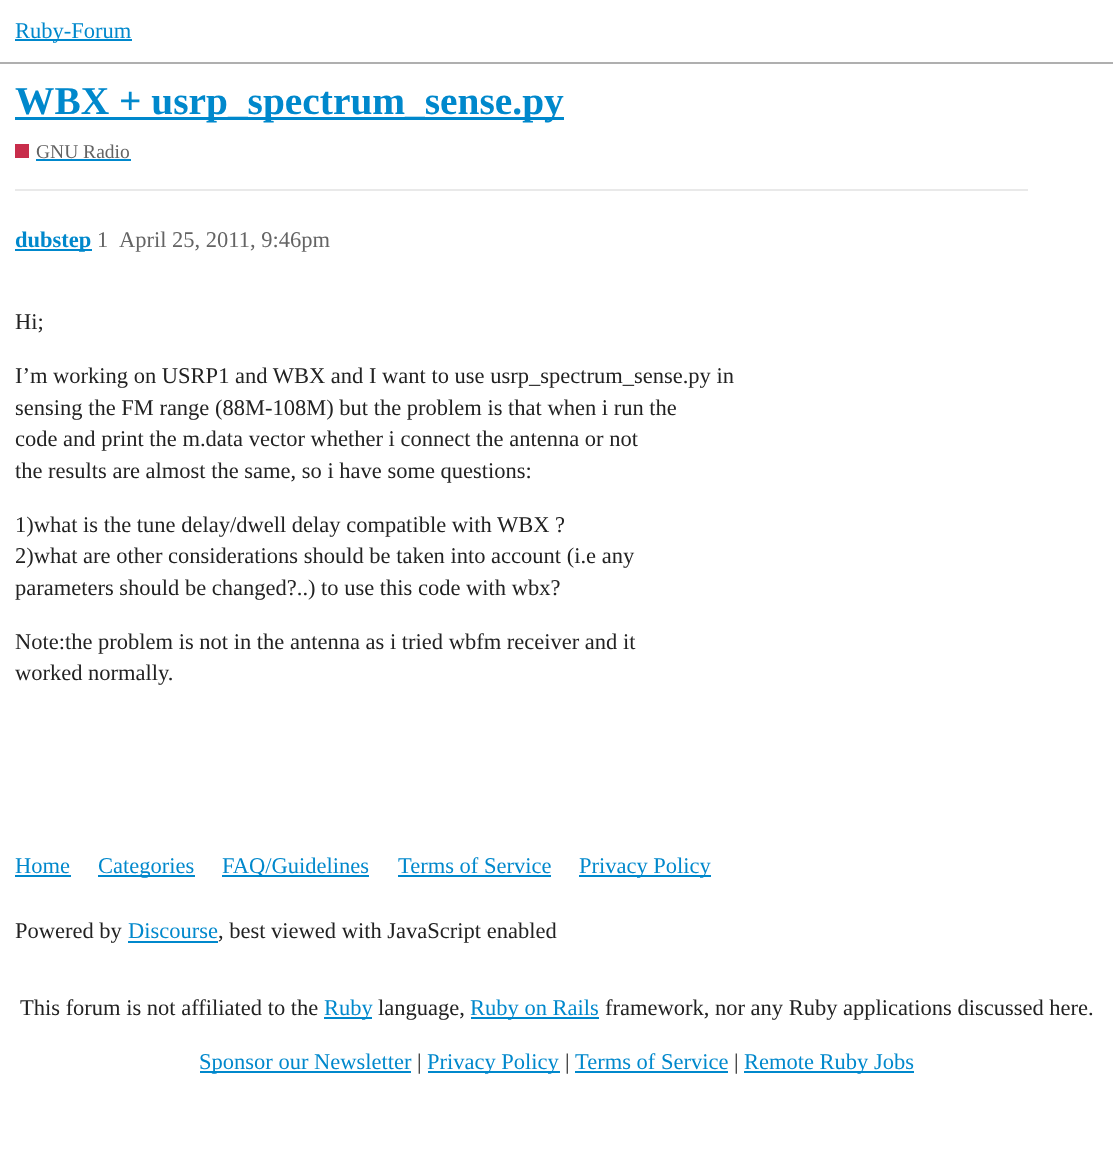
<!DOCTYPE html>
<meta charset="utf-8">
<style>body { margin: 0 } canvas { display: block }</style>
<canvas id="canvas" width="1113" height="1151"></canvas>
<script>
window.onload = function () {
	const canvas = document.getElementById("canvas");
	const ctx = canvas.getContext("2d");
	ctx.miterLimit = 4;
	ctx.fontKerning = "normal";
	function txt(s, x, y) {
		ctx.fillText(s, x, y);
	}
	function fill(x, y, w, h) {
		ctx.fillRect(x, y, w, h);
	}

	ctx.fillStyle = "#FFFFFF";
	fill(0, 0, 1113, 1151);
	ctx.fillStyle = "#AFAFAF";
	fill(0, 62, 1113, 2);
	ctx.fillStyle = "#0088CC";
	fill(15, 39, 117, 2);
	fill(15, 117, 549, 3);
	ctx.fillStyle = "#C82D4B";
	fill(15, 144, 14, 14);
	ctx.fillStyle = "#0088CC";
	fill(36, 159, 95, 2);
	ctx.fillStyle = "#E9E9E9";
	fill(15, 189, 1013, 2);
	ctx.fillStyle = "#0088CC";
	fill(15, 249, 77, 2);
	fill(15, 875, 56, 2);
	fill(98, 875, 97, 2);
	fill(222, 875, 147, 2);
	fill(398, 875, 153, 2);
	fill(579, 875, 132, 2);
	fill(128, 941, 90, 2);
	fill(324, 1017, 48, 2);
	fill(471, 1017, 128, 2);
	fill(200, 1071, 211, 2);
	fill(428, 1071, 132, 2);
	fill(575, 1071, 153, 2);
	fill(744, 1071, 170, 2);
	ctx.font = "22.5px Liberation Serif";
	txt("Ruby-Forum", 15, 38);
	ctx.font = "bold 39.4px Liberation Serif";
	txt("WBX + usrp_spectrum_sense.py", 15, 114);
	ctx.font = "19.5px Liberation Serif";
	ctx.fillStyle = "#646464";
	txt("GNU Radio", 36, 158);
	ctx.font = "bold 22.5px Liberation Serif";
	ctx.fillStyle = "#0088CC";
	txt("dubstep", 15, 247);
	ctx.font = "22.5px Liberation Serif";
	ctx.fillStyle = "#646464";
	txt("1", 97, 247);
	txt("April 25, 2011, 9:46pm", 119, 247);
	ctx.fillStyle = "#222222";
	txt("Hi;", 15, 329);
	txt("I’m working on USRP1 and WBX and I want to use usrp_spectrum_sense.py in", 15, 383);
	txt("sensing the FM range (88M-108M) but the problem is that when i run the", 15, 415);
	txt("code and print the m.data vector whether i connect the antenna or not", 15, 446);
	txt("the results are almost the same, so i have some questions:", 15, 478);
	txt("1)what is the tune delay/dwell delay compatible with WBX ?", 15, 532);
	txt("2)what are other considerations should be taken into account (i.e any", 15, 563);
	txt("parameters should be changed?..) to use this code with wbx?", 15, 595);
	txt("Note:the problem is not in the antenna as i tried wbfm receiver and it", 15, 649);
	txt("worked normally.", 15, 680);
	ctx.fillStyle = "#0088CC";
	txt("Home", 15, 873);
	txt("Categories", 98, 873);
	txt("FAQ/Guidelines", 222, 873);
	txt("Terms of Service", 398, 873);
	txt("Privacy Policy", 579, 873);
	ctx.fillStyle = "#222222";
	txt("Powered by", 15, 938);
	ctx.fillStyle = "#0088CC";
	txt("Discourse", 128, 938);
	ctx.fillStyle = "#222222";
	txt(", best viewed with JavaScript enabled", 218, 938);
	txt("This forum is not affiliated to the", 20, 1015);
	ctx.fillStyle = "#0088CC";
	txt("Ruby", 324, 1015);
	ctx.fillStyle = "#222222";
	txt("language,", 378, 1015);
	ctx.fillStyle = "#0088CC";
	txt("Ruby on Rails", 470, 1015);
	ctx.fillStyle = "#222222";
	txt("framework, nor any Ruby applications discussed here.", 605, 1015);
	ctx.fillStyle = "#0088CC";
	txt("Sponsor our Newsletter", 199, 1069);
	ctx.fillStyle = "#222222";
	txt("|", 417, 1069);
	ctx.fillStyle = "#0088CC";
	txt("Privacy Policy", 427, 1069);
	ctx.fillStyle = "#222222";
	txt("|", 565, 1069);
	ctx.fillStyle = "#0088CC";
	txt("Terms of Service", 575, 1069);
	ctx.fillStyle = "#222222";
	txt("|", 734, 1069);
	ctx.fillStyle = "#0088CC";
	txt("Remote Ruby Jobs", 744, 1069);
};
</script>
